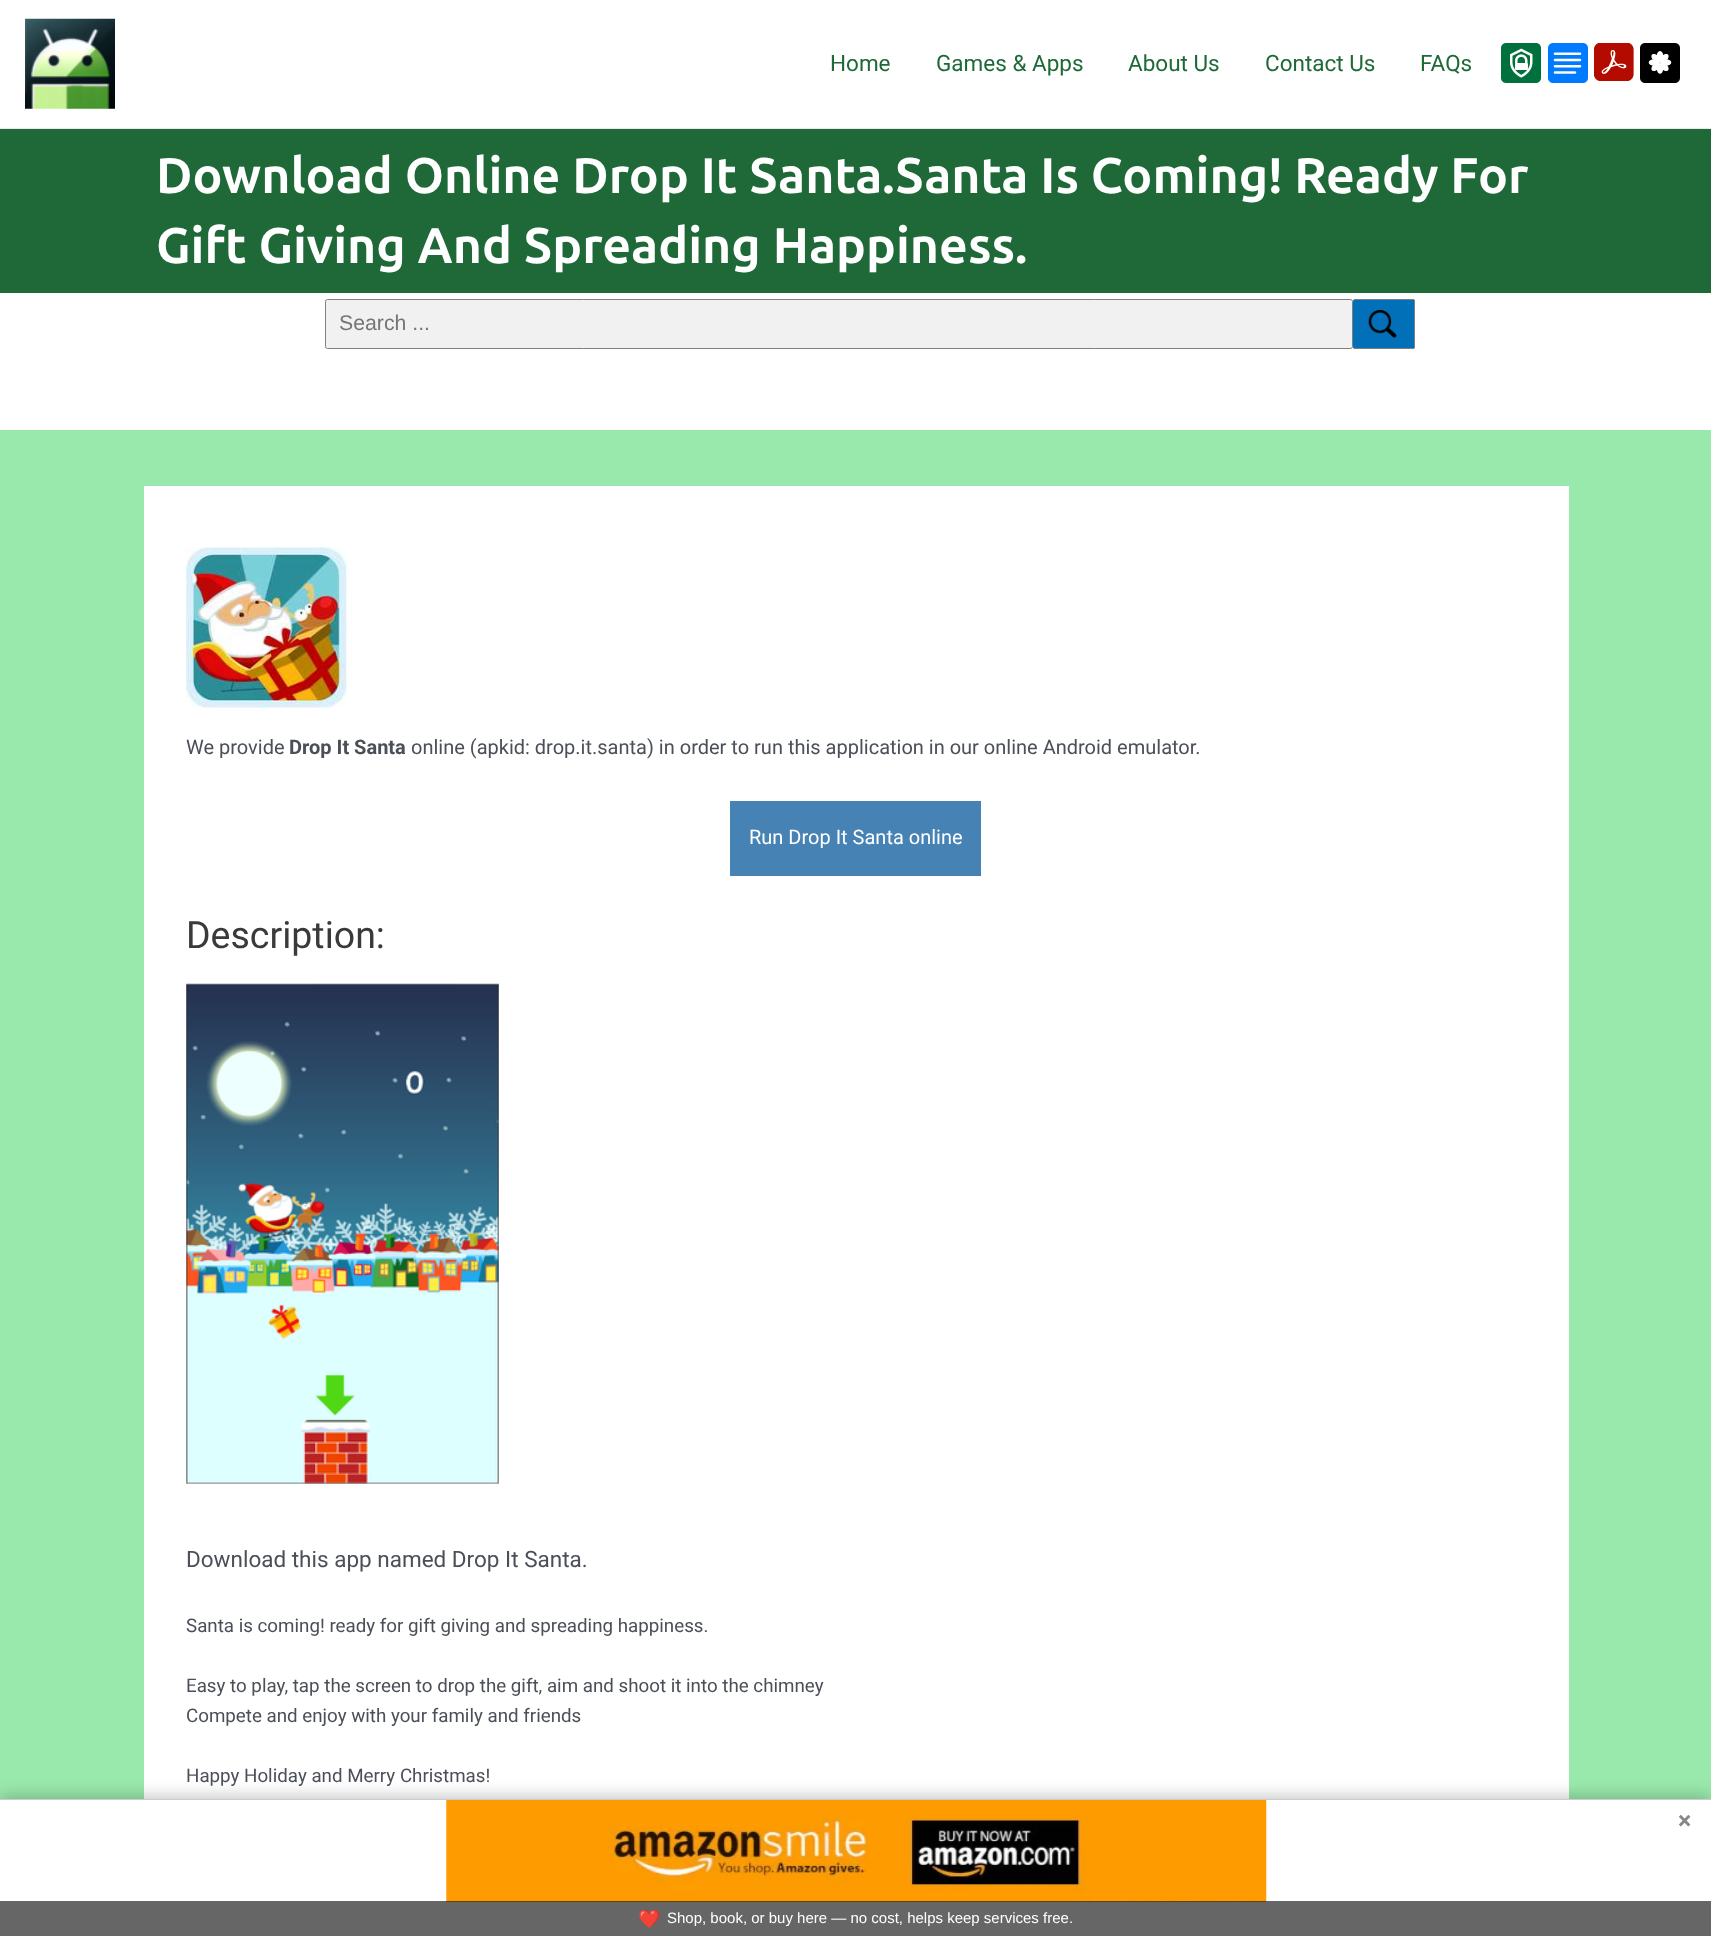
<!DOCTYPE html>
<meta charset="utf-8">
<style>body { margin: 0 } canvas { display: block }</style>
<canvas id="canvas" width="1711" height="1936"></canvas>
<img id="img1" src="img_01.png" hidden>
<img id="img2" src="img_02.png" hidden>
<img id="img3" src="img_03.png" hidden>
<img id="img4" src="img_04.png" hidden>
<img id="img5" src="img_05.png" hidden>
<img id="img6" src="img_06.png" hidden>
<img id="img7" src="img_07.png" hidden>
<img id="img8" src="img_08.png" hidden>
<img id="img9" src="img_09.png" hidden>
<script>
window.onload = function () {
	const canvas = document.getElementById("canvas");
	const ctx = canvas.getContext("2d");
	ctx.miterLimit = 4;
	ctx.fontKerning = "normal";
	function txt(s, x, y) {
		ctx.fillText(s, x, y);
	}
	function fill(x, y, w, h) {
		ctx.fillRect(x, y, w, h);
	}
	function round(x, y, w, h, r) {
		ctx.beginPath();
		ctx.roundRect(x, y, w, h, r);
		ctx.fill();
	}
	function img(id, x, y, w, h) {
		ctx.drawImage(document.getElementById(id), x, y, w, h);
	}

	ctx.fillStyle = "#FFFFFF";
	fill(0, 0, 1711, 1936);
	ctx.fillStyle = "#EAEAEA";
	fill(0, 128, 1711, 1);
	img("img1", 25, 18, 90, 91);
	img("img2", 1501, 43, 40, 40);
	img("img3", 1548, 43, 40, 40);
	img("img4", 1594, 43, 40, 38);
	img("img5", 1640, 43, 40, 40);
	ctx.fillStyle = "#1E6937";
	fill(0, 129, 1711, 164);
	ctx.fillStyle = "#F1F1F1";
	ctx.beginPath();
	ctx.roundRect(325.5, 299.5, 1027, 49, 2);
	ctx.fill();
	ctx.strokeStyle = "#808080";
	ctx.stroke();
	ctx.fillStyle = "#0170B9";
	round(1353, 299, 62, 50, 2.5);
	ctx.fillStyle = "#808080";
	fill(1354, 299, 60, 1);
	fill(1414, 300, 1, 48);
	fill(1354, 348, 60, 1);
	img("img6", 1368, 310, 29, 28);
	ctx.fillStyle = "#99E9AC";
	fill(0, 430, 1711, 1369);
	ctx.fillStyle = "#FFFFFF";
	fill(144, 486, 1425, 1313);
	img("img7", 186, 547, 161, 161);
	ctx.fillStyle = "#4682B4";
	fill(730, 801, 251, 75);
	img("img8", 186, 983, 313, 501);
	ctx.fillStyle = "rgba(0, 0, 0, 0.2)";
	ctx.filter = "blur(7.5px)";
	ctx.beginPath();
	ctx.rect(0, 1795, 1711, 138);
	ctx.fill();
	ctx.filter = "none";
	ctx.fillStyle = "#FFFFFF";
	fill(0, 1800, 1711, 136);
	ctx.fillStyle = "#CCCCCC";
	fill(0, 1799, 1711, 1);
	img("img9", 446, 1800, 821, 102);
	ctx.fillStyle = "rgba(0, 0, 0, 0.6)";
	fill(0, 1901, 1711, 35);
	ctx.font = "22.5px Roboto";
	ctx.fillStyle = "#1E6937";
	txt("Home", 830, 71);
	txt("Games & Apps", 936, 71);
	txt("About Us", 1128, 71);
	txt("Contact Us", 1265, 71);
	txt("FAQs", 1420, 71);
	ctx.font = "bold 50px Ubuntu";
	ctx.fillStyle = "#FFFFFF";
	txt("Download Online Drop It Santa.Santa Is Coming! Ready For", 156, 193);
	txt("Gift Giving And Spreading Happiness.", 156, 263);
	ctx.font = "21.25px Liberation Sans";
	ctx.fillStyle = "#757575";
	txt("Search ...", 339, 330);
	ctx.font = "20px Roboto";
	ctx.fillStyle = "#4B4F58";
	txt("We provide", 186, 754);
	ctx.font = "bold 20px Roboto";
	txt("Drop It Santa", 289, 754);
	ctx.font = "20px Roboto";
	txt("online (apkid: drop.it.santa) in order to run this application in our online Android emulator.", 411, 754);
	ctx.fillStyle = "#FFFFFF";
	txt("Run Drop It Santa online", 749, 844);
	ctx.font = "37.5px Roboto";
	ctx.fillStyle = "#3A3A3A";
	txt("Description:", 186, 948);
	ctx.font = "22.5px Roboto";
	ctx.fillStyle = "#4B4F58";
	txt("Download this app named Drop It Santa.", 186, 1567);
	ctx.font = "18.75px Roboto";
	txt("Santa is coming! ready for gift giving and spreading happiness.", 186, 1632);
	txt("Easy to play, tap the screen to drop the gift, aim and shoot it into the chimney", 186, 1692);
	txt("Compete and enjoy with your family and friends", 186, 1722);
	txt("Happy Holiday and Merry Christmas!", 186, 1782);
	ctx.font = "bold 25px Roboto";
	ctx.fillStyle = "#888888";
	txt("×", 1678, 1829);
	ctx.font = "18px Noto Color Emoji";
	ctx.fillStyle = "#FFFFFF";
	txt("❤️", 638, 1925);
	ctx.font = "15px Liberation Sans";
	txt("Shop, book, or buy here — no cost, helps keep services free.", 667, 1923);
};
</script>
